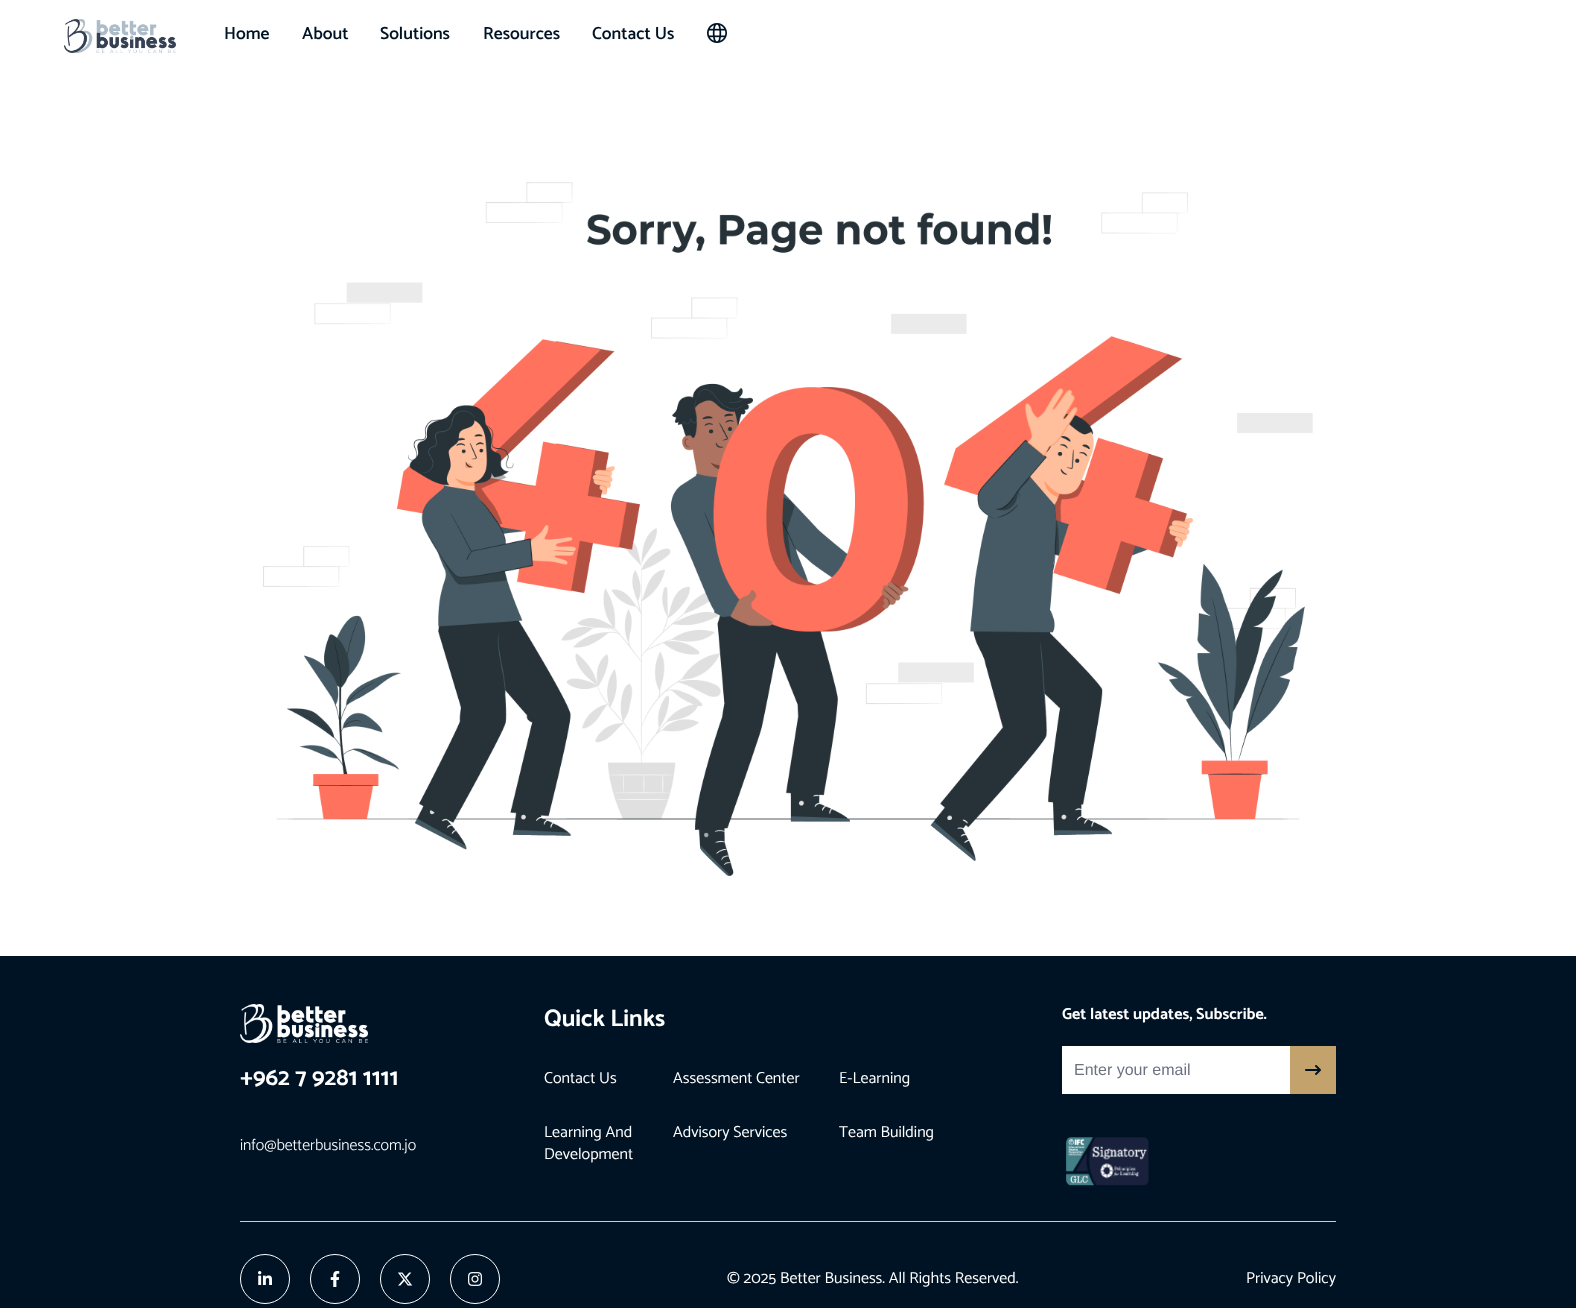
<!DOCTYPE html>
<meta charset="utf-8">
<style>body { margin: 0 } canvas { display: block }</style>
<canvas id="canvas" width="1576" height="1308"></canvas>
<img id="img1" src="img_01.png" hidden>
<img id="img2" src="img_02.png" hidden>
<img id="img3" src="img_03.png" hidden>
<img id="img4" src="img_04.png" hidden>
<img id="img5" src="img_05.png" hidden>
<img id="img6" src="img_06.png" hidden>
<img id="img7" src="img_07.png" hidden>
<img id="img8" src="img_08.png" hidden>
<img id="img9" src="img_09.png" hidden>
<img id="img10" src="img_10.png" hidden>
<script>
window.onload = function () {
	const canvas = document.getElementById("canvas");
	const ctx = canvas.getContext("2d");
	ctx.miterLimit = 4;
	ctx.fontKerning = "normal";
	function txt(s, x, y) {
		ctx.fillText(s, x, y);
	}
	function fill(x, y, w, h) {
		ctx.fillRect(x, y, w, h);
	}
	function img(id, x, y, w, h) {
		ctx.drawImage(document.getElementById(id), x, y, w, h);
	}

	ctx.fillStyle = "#FFFFFF";
	fill(0, 0, 1576, 1308);
	img("img1", 64, 19, 112, 34);
	img("img2", 707, 23, 20, 20);
	img("img3", 263, 182, 1050, 694);
	ctx.fillStyle = "#001325";
	fill(0, 956, 1576, 352);
	img("img4", 240, 1004, 128, 39);
	ctx.fillStyle = "#FFFFFF";
	fill(1062, 1046, 228, 48);
	ctx.fillStyle = "#C3A26B";
	fill(1290, 1046, 46, 48);
	img("img5", 1305, 1065, 16, 10);
	img("img6", 1066, 1137, 83, 49);
	ctx.fillStyle = "#CCCCCC";
	fill(240, 1221, 1096, 1);
	ctx.beginPath();
	ctx.arc(265, 1279, 24.5, 0, Math.PI * 2);
	ctx.strokeStyle = "#FFFFFF";
	ctx.stroke();
	img("img7", 258, 1271, 14, 14);
	ctx.beginPath();
	ctx.arc(335, 1279, 24.5, 0, Math.PI * 2);
	ctx.stroke();
	img("img8", 330, 1271, 10, 16);
	ctx.beginPath();
	ctx.arc(405, 1279, 24.5, 0, Math.PI * 2);
	ctx.stroke();
	img("img9", 398, 1272, 15, 14);
	ctx.beginPath();
	ctx.arc(475, 1279, 24.5, 0, Math.PI * 2);
	ctx.stroke();
	img("img10", 468, 1272, 14, 14);
	ctx.font = "600 17.5px Catamaran";
	ctx.fillStyle = "#001325";
	txt("Home", 224, 39);
	txt("About", 302, 39);
	txt("Solutions", 380, 39);
	txt("Resources", 483, 39);
	txt("Contact Us", 592, 39);
	ctx.font = "bold 24px Catamaran";
	ctx.fillStyle = "#FFFFFF";
	txt("+962 7 9281 1111", 240, 1085);
	ctx.font = "300 16px Catamaran";
	txt("info@betterbusiness.com.jo", 240, 1150);
	ctx.font = "bold 24px Catamaran";
	txt("Quick Links", 544, 1026);
	ctx.font = "16px Catamaran";
	txt("Contact Us", 544, 1083);
	txt("Learning And", 544, 1137);
	txt("Development", 544, 1159);
	txt("Assessment Center", 673, 1083);
	txt("Advisory Services", 673, 1137);
	txt("E-Learning", 839, 1083);
	txt("Team Building", 839, 1137);
	ctx.font = "bold 16px Catamaran";
	txt("Get latest updates, Subscribe.", 1062, 1019);
	ctx.font = "16px Liberation Sans";
	ctx.fillStyle = "#6B7280";
	txt("Enter your email", 1074, 1075);
	ctx.font = "16px Catamaran";
	ctx.fillStyle = "#FFFFFF";
	txt("© 2025 Better Business. All Rights Reserved.", 727, 1283);
	txt("Privacy Policy", 1246, 1283);
};
</script>
